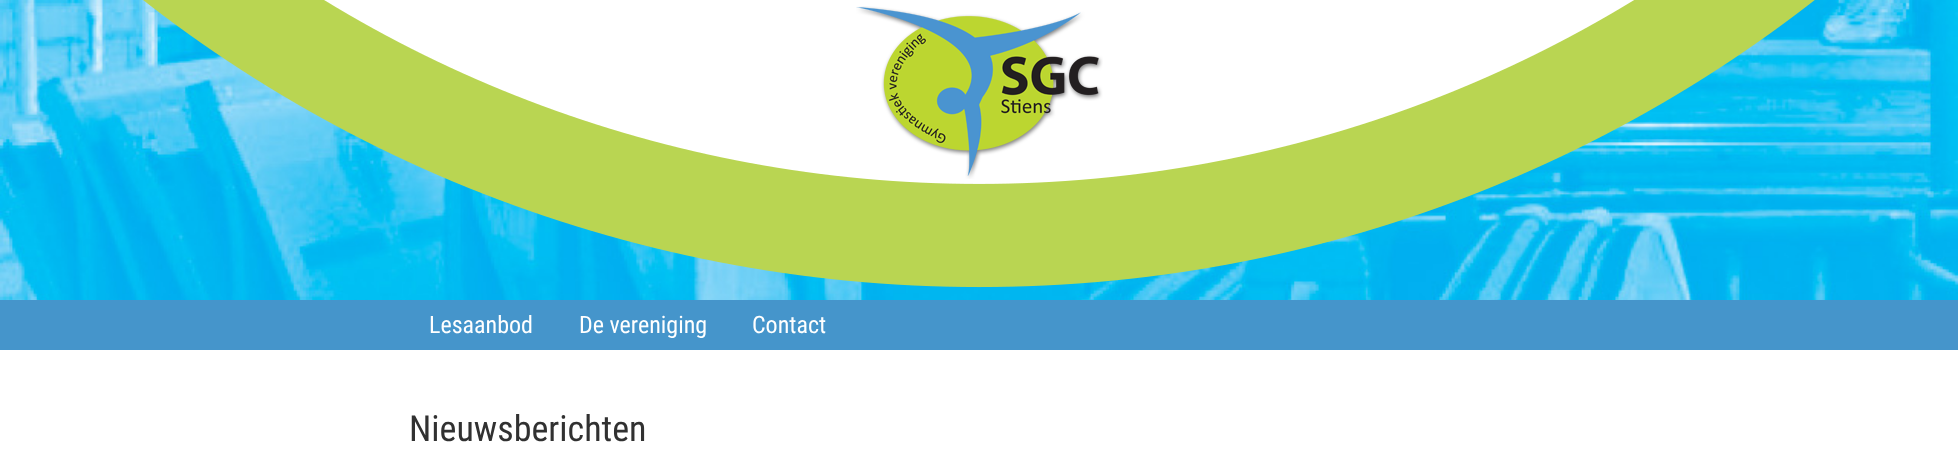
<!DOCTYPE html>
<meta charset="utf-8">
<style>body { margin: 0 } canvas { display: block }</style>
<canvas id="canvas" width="1958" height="452"></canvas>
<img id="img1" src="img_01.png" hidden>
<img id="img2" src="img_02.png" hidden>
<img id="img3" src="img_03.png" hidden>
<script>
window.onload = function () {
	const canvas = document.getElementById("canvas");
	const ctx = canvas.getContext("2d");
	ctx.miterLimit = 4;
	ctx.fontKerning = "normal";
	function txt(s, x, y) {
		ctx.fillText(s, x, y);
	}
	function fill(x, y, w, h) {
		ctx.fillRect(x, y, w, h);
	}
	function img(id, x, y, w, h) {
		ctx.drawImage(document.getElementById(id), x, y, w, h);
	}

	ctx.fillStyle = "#FFFFFF";
	fill(0, 0, 1958, 452);
	img("img1", 0, 0, 1958, 300);
	img("img2", 143, 0, 1672, 288);
	img("img3", 856, 6, 247, 173);
	ctx.fillStyle = "#4595CB";
	fill(0, 300, 1958, 50);
	ctx.font = "24px Roboto Condensed";
	ctx.fillStyle = "#FFFFFF";
	txt("Lesaanbod", 429, 333);
	txt("De vereniging", 579, 333);
	txt("Contact", 752, 333);
	ctx.font = "36px Roboto Condensed";
	ctx.fillStyle = "#313131";
	txt("Nieuwsberichten", 409, 441);
};
</script>
